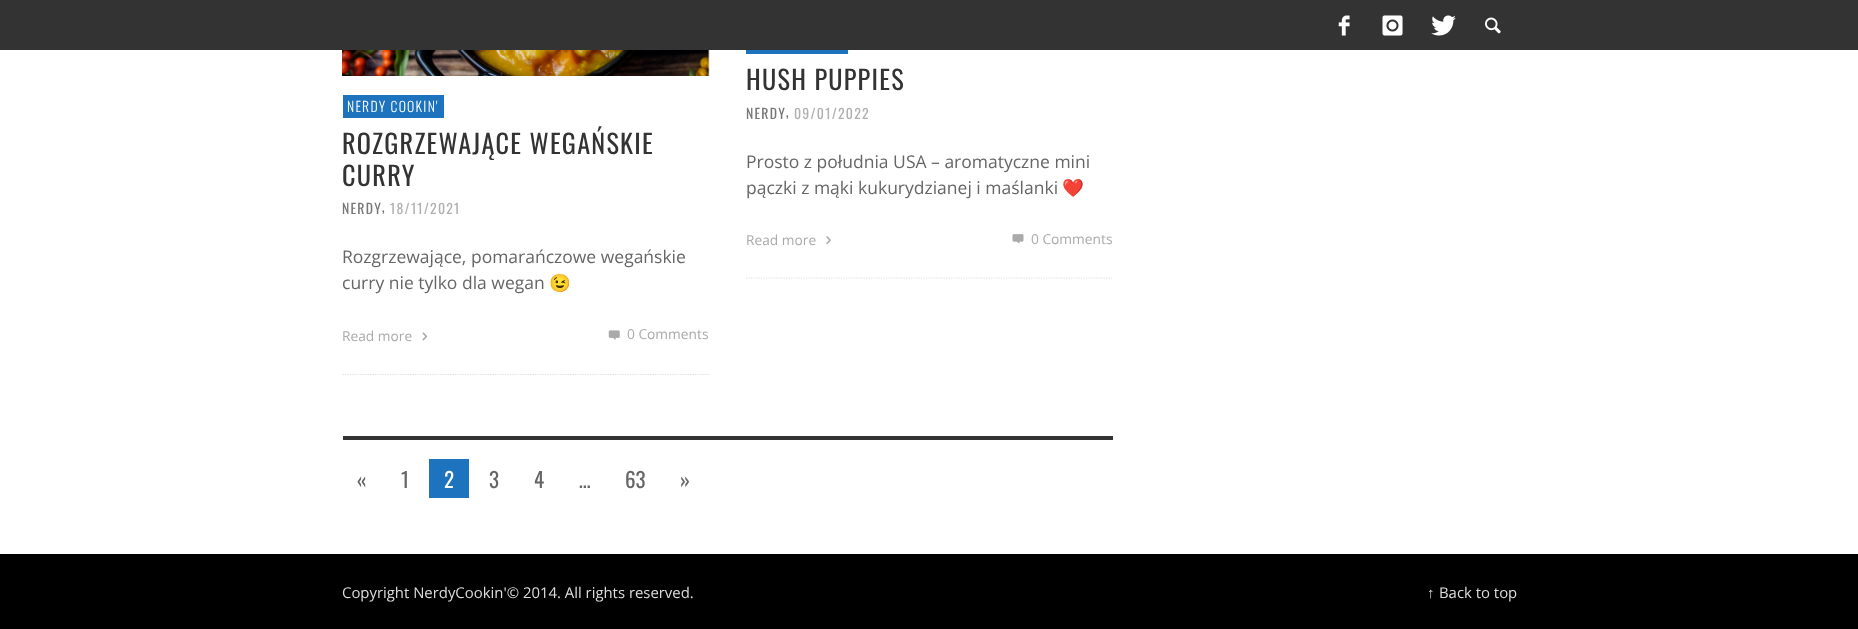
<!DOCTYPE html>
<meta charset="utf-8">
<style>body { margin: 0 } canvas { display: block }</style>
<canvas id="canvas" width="1858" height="629"></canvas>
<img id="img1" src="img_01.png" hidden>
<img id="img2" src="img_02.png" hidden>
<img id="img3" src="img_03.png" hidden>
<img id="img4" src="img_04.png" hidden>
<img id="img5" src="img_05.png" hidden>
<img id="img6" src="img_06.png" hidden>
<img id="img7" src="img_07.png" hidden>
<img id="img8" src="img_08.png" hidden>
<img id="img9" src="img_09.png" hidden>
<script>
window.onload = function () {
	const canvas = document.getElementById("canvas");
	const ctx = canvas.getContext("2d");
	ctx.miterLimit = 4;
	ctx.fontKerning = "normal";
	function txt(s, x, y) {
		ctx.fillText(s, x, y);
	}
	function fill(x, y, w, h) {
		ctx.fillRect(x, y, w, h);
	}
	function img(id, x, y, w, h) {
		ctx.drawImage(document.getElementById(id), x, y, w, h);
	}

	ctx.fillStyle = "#FFFFFF";
	fill(0, 0, 1858, 629);
	ctx.fillStyle = "#333333";
	fill(0, 0, 1858, 50);
	img("img1", 1338, 15, 12, 21);
	img("img2", 1382, 15, 21, 21);
	img("img3", 1431, 15, 25, 21);
	img("img4", 1485, 17, 16, 17);
	ctx.beginPath();
	ctx.moveTo(342.5, 374.5);
	ctx.lineTo(709, 374.5);
	ctx.strokeStyle = "#DDDDDD";
	ctx.lineWidth = 1.2;
	ctx.setLineDash([1.25, 1.25]);
	ctx.stroke();
	img("img5", 342, 50, 368, 26);
	ctx.fillStyle = "#1E73BE";
	fill(343, 95, 101, 23);
	img("img6", 422, 332, 6, 9);
	img("img7", 608, 330, 12, 10);
	ctx.beginPath();
	ctx.moveTo(746, 278);
	ctx.lineTo(1112.5, 278);
	ctx.stroke();
	fill(746, 50, 102, 4);
	img("img8", 826, 236, 5, 8);
	img("img9", 1012, 234, 12, 10);
	ctx.fillStyle = "#333333";
	fill(343, 436, 770, 4);
	ctx.fillStyle = "#1E73BE";
	fill(429, 459, 40, 39);
	ctx.fillStyle = "#000000";
	fill(0, 554, 1858, 75);
	ctx.letterSpacing = "1.25px";
	ctx.font = "300 13.75px Oswald";
	ctx.fillStyle = "#FFFFFF";
	txt("NERDY COOKIN'", 347, 112);
	ctx.font = "26.25px Oswald";
	ctx.fillStyle = "#333333";
	txt("ROZGRZEWAJĄCE WEGAŃSKIE", 342, 154);
	txt("CURRY", 342, 186);
	ctx.font = "13.75px Oswald";
	ctx.fillStyle = "#777777";
	txt("NERDY", 342, 214);
	ctx.fillStyle = "#666666";
	txt(",", 382, 212);
	ctx.fillStyle = "#B0B0B0";
	txt("18/11/2021", 390, 214);
	ctx.letterSpacing = "0px";
	ctx.font = "17.5px Open Sans";
	ctx.fillStyle = "#666666";
	txt("Rozgrzewające, pomarańczowe wegańskie", 342, 263);
	txt("curry nie tylko dla wegan", 342, 289);
	ctx.font = "17.5px Noto Color Emoji";
	txt("😉", 549, 289);
	ctx.font = "13.75px Open Sans";
	ctx.fillStyle = "#AAAAAA";
	txt("Read more", 342, 341);
	txt("0 Comments", 627, 339);
	ctx.letterSpacing = "1.25px";
	ctx.font = "26.25px Oswald";
	ctx.fillStyle = "#333333";
	txt("HUSH PUPPIES", 746, 90);
	ctx.font = "13.75px Oswald";
	ctx.fillStyle = "#777777";
	txt("NERDY", 746, 119);
	ctx.fillStyle = "#666666";
	txt(",", 786, 117);
	ctx.fillStyle = "#B0B0B0";
	txt("09/01/2022", 794, 119);
	ctx.letterSpacing = "0px";
	ctx.font = "17.5px Open Sans";
	ctx.fillStyle = "#666666";
	txt("Prosto z południa USA – aromatyczne mini", 746, 168);
	txt("pączki z mąki kukurydzianej i maślanki", 746, 194);
	ctx.font = "17.5px Noto Color Emoji";
	txt("❤️", 1062, 194);
	ctx.font = "13.75px Open Sans";
	ctx.fillStyle = "#AAAAAA";
	txt("Read more", 746, 245);
	txt("0 Comments", 1031, 244);
	ctx.font = "21px Oswald";
	ctx.fillStyle = "#666666";
	txt("«", 357, 488);
	txt("1", 401, 488);
	ctx.fillStyle = "#FFFFFF";
	txt("2", 444, 488);
	ctx.fillStyle = "#666666";
	txt("3", 489, 488);
	txt("4", 534, 488);
	txt("…", 579, 488);
	txt("63", 625, 488);
	txt("»", 680, 488);
	ctx.font = "14.9px Open Sans";
	ctx.fillStyle = "#DDDDDD";
	txt("Copyright NerdyCookin'© 2014. All rights reserved.", 342, 598);
	ctx.font = "14.9px Liberation Sans";
	txt("↑", 1427, 598);
	ctx.font = "14.9px Open Sans";
	txt("Back to top", 1439, 598);
};
</script>
